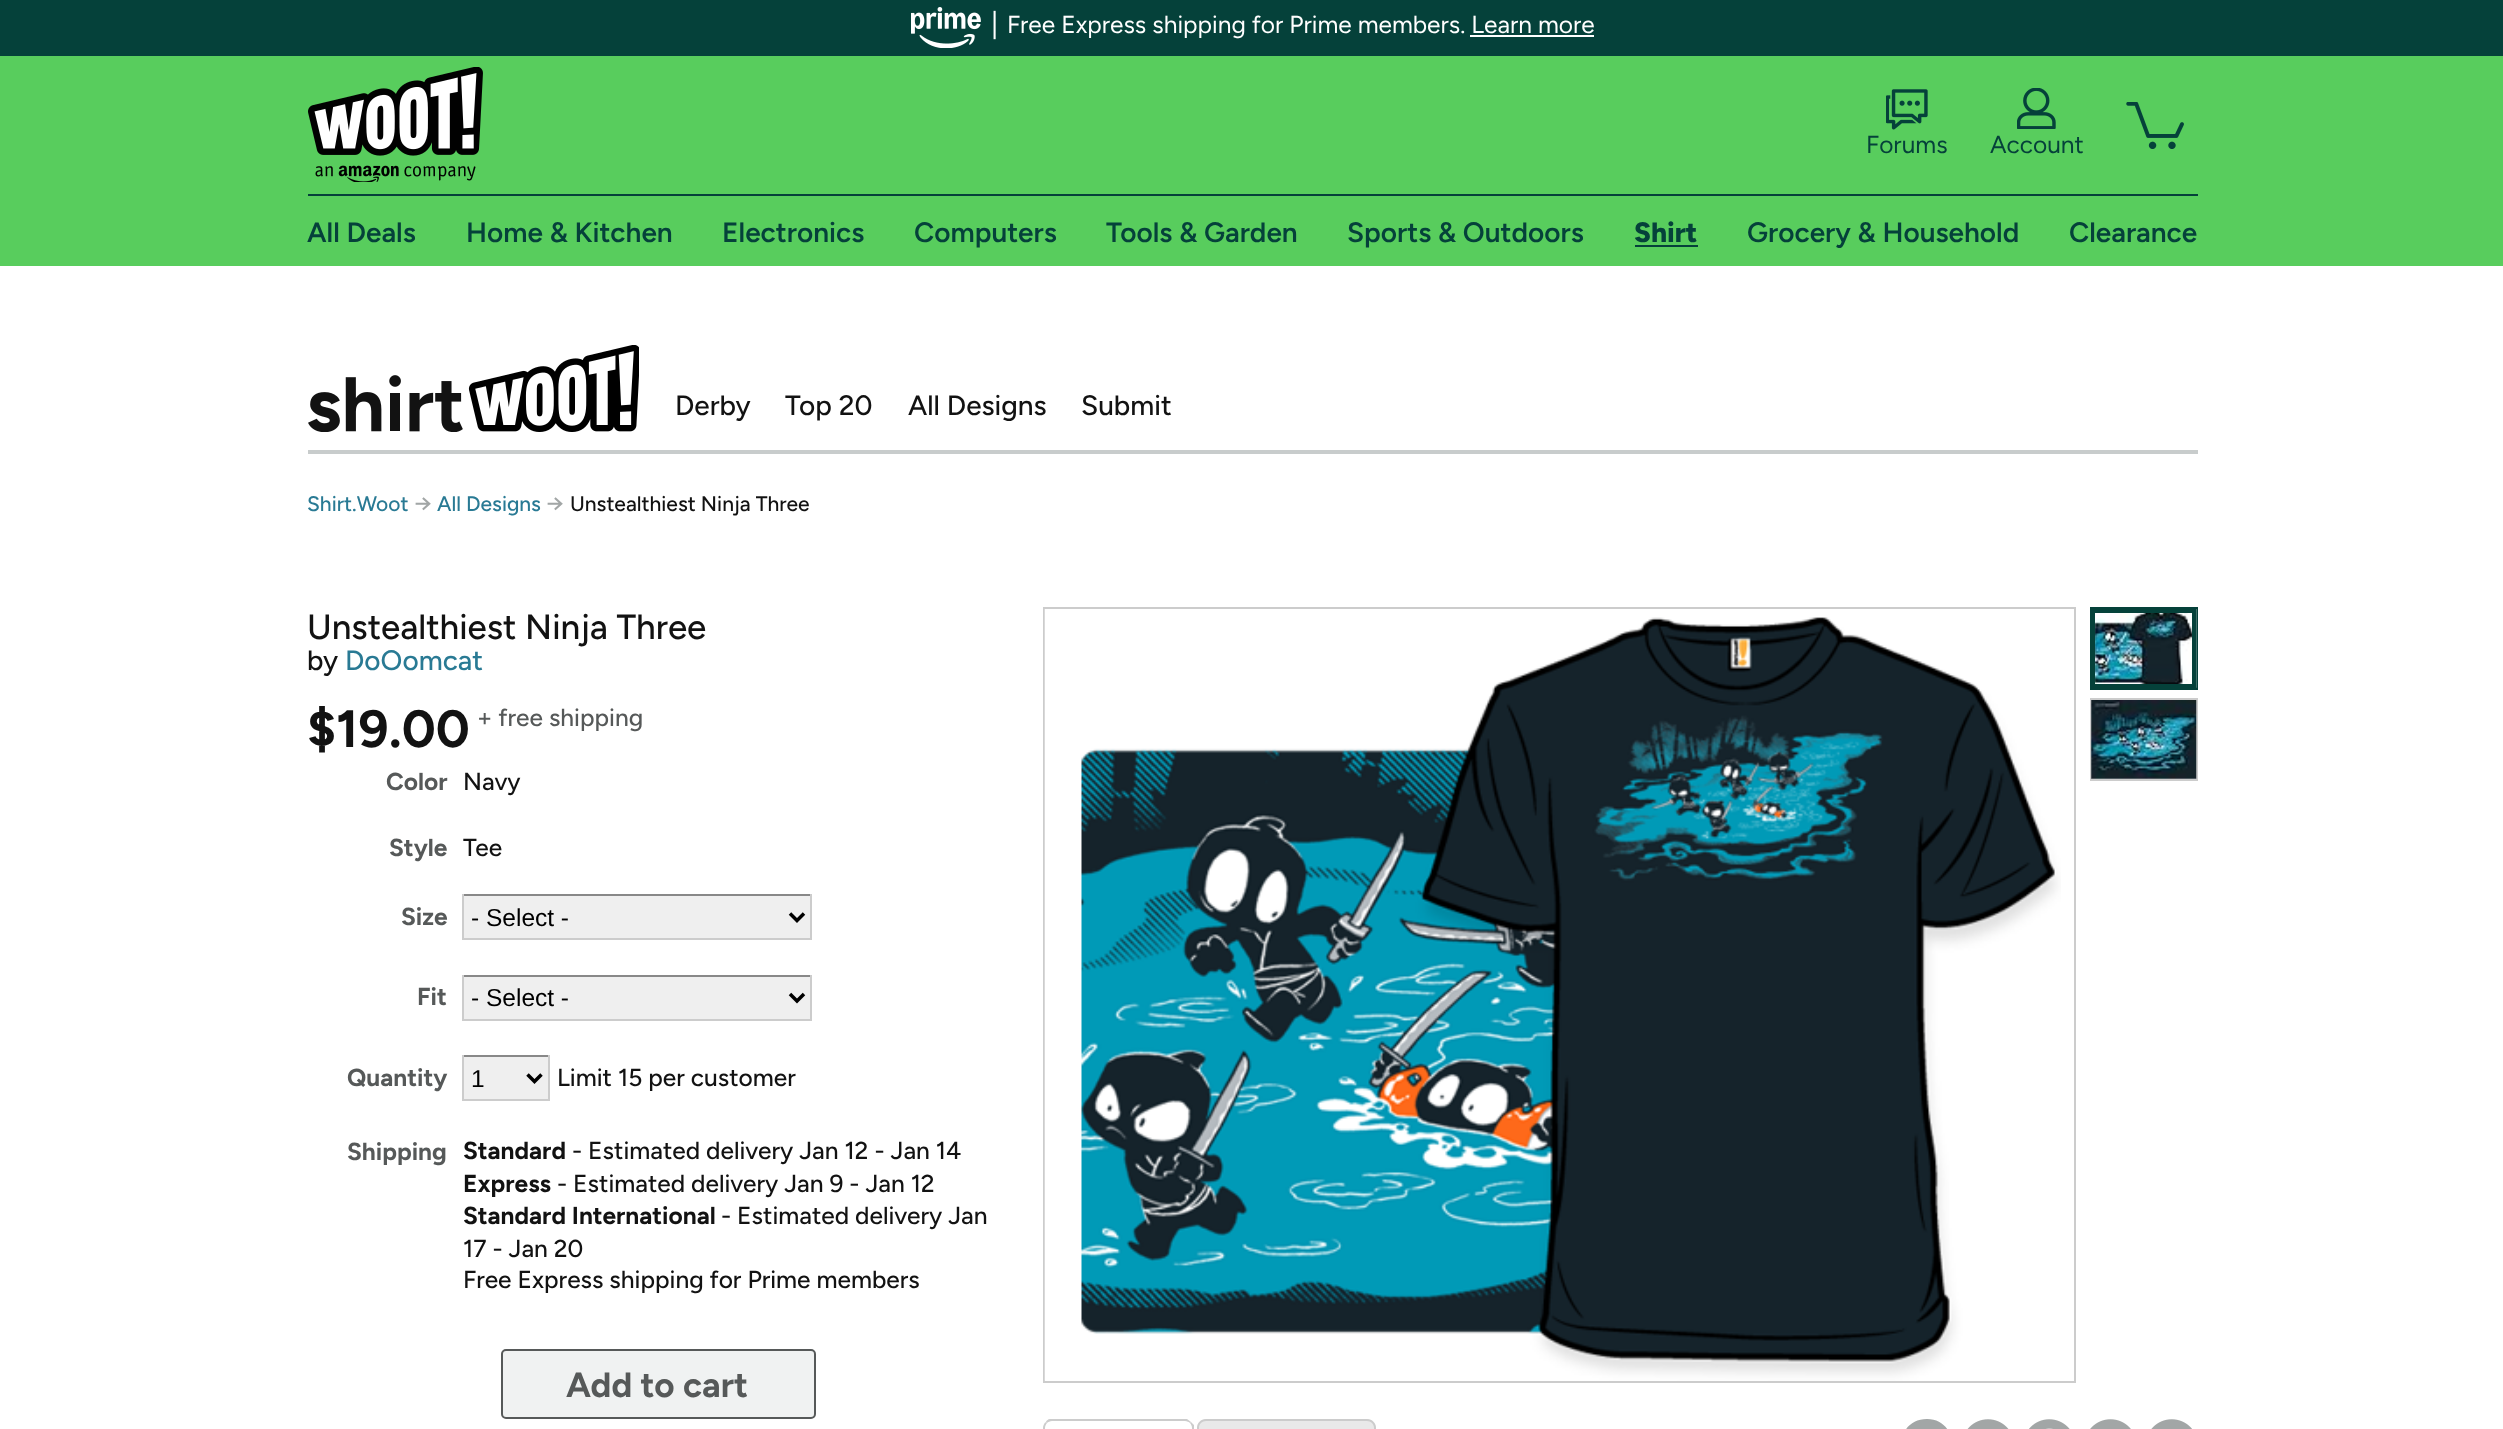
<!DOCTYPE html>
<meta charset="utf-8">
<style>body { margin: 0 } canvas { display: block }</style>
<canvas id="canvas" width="2503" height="1429"></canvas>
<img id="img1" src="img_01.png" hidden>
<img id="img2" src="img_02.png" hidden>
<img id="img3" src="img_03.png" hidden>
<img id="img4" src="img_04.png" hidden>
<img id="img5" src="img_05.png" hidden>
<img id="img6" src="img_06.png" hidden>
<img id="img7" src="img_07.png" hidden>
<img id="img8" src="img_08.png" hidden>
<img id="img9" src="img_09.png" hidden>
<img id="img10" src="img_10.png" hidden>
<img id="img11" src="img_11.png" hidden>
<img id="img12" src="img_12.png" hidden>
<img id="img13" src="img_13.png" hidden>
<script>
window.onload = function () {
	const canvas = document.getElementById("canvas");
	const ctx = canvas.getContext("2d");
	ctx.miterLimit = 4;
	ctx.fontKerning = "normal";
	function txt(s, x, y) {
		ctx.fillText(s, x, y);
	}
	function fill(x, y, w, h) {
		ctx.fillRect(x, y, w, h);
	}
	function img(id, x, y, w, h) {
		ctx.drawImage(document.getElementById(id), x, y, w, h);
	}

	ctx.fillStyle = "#FFFFFF";
	fill(0, 0, 2503, 1429);
	ctx.fillStyle = "#05413A";
	fill(0, 0, 2503, 56);
	img("img1", 911, 7, 70, 41);
	ctx.fillStyle = "#FFFFFF";
	fill(1470, 35, 124, 2);
	ctx.fillStyle = "#58CD5D";
	fill(0, 56, 2503, 210);
	ctx.fillStyle = "#05413A";
	fill(308, 194, 1890, 2);
	img("img2", 308, 67, 175, 115);
	img("img3", 1886, 89, 42, 41);
	img("img4", 2017, 88, 39, 41);
	img("img5", 2126, 102, 58, 47);
	fill(1635, 245, 63, 2);
	ctx.fillStyle = "#C8CCCC";
	fill(308, 450, 1890, 4);
	img("img6", 308, 345, 331, 87);
	ctx.fillStyle = "#EFEFEF";
	fill(464, 896, 346, 42);
	ctx.fillStyle = "#888888";
	fill(462, 894, 350, 2);
	ctx.fillStyle = "#CCCCCC";
	fill(810, 894, 2, 46);
	fill(462, 938, 350, 2);
	fill(462, 894, 2, 46);
	ctx.beginPath();
	ctx.moveTo(790, 913.5);
	ctx.lineTo(797, 920.5);
	ctx.lineTo(804, 913.5);
	ctx.strokeStyle = "#000000";
	ctx.lineWidth = 3.5;
	ctx.stroke();
	ctx.fillStyle = "#EFEFEF";
	fill(464, 977, 346, 42);
	ctx.fillStyle = "#888888";
	fill(462, 975, 350, 2);
	ctx.fillStyle = "#CCCCCC";
	fill(810, 975, 2, 45);
	fill(462, 1019, 350, 2);
	fill(462, 975, 2, 45);
	ctx.beginPath();
	ctx.moveTo(790, 994);
	ctx.lineTo(797, 1001);
	ctx.lineTo(804, 994);
	ctx.stroke();
	ctx.fillStyle = "#EFEFEF";
	fill(464, 1057, 84, 42);
	ctx.fillStyle = "#888888";
	fill(462, 1055, 88, 2);
	ctx.fillStyle = "#CCCCCC";
	fill(548, 1055, 2, 46);
	fill(462, 1099, 88, 2);
	fill(462, 1055, 2, 46);
	ctx.beginPath();
	ctx.moveTo(527.5, 1074.5);
	ctx.lineTo(534.5, 1081.5);
	ctx.lineTo(541.5, 1074.5);
	ctx.stroke();
	ctx.fillStyle = "#F0F2F2";
	ctx.beginPath();
	ctx.roundRect(502, 1350, 313, 68, 4);
	ctx.fill();
	ctx.strokeStyle = "#565959";
	ctx.lineWidth = 2;
	ctx.stroke();
	ctx.strokeStyle = "#CCCCCC";
	ctx.strokeRect(1044, 608, 1031, 774);
	img("img7", 1044, 609, 1017, 772);
	ctx.strokeStyle = "#05413A";
	ctx.strokeRect(2091, 608, 106, 81);
	img("img8", 2095, 609, 102, 79);
	ctx.lineWidth = 4;
	ctx.strokeRect(2093, 611, 101, 75);
	ctx.strokeStyle = "#CCCCCC";
	ctx.lineWidth = 2;
	ctx.strokeRect(2091, 699, 106, 81);
	img("img9", 2091, 700, 106, 79);
	ctx.fillStyle = "#CCCCCC";
	ctx.beginPath();
	ctx.moveTo(1052, 1421);
	ctx.bezierCurveTo(1050, 1421, 1048, 1422, 1047, 1423);
	ctx.lineTo(1046, 1422);
	ctx.bezierCurveTo(1046, 1421, 1048, 1419, 1050, 1419);
	ctx.lineTo(1187, 1419);
	ctx.lineTo(1191, 1422);
	ctx.lineTo(1190, 1423);
	ctx.bezierCurveTo(1189, 1422, 1187, 1421, 1185, 1421);
	ctx.closePath();
	ctx.fill();
	ctx.beginPath();
	ctx.moveTo(1191, 1422);
	ctx.lineTo(1194, 1425);
	ctx.lineTo(1194, 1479);
	ctx.lineTo(1192, 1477);
	ctx.lineTo(1192, 1428);
	ctx.bezierCurveTo(1192, 1426, 1191, 1424, 1190, 1423);
	ctx.closePath();
	ctx.fill();
	ctx.beginPath();
	ctx.moveTo(1043, 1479);
	ctx.lineTo(1045, 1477);
	ctx.lineTo(1045, 1428);
	ctx.bezierCurveTo(1045, 1426, 1046, 1424, 1047, 1423);
	ctx.lineTo(1046, 1422);
	ctx.bezierCurveTo(1044, 1423, 1043, 1426, 1043, 1428);
	ctx.closePath();
	ctx.fill();
	ctx.fillStyle = "#E9E9E9";
	ctx.beginPath();
	ctx.moveTo(1206, 1419);
	ctx.lineTo(1367, 1419);
	ctx.bezierCurveTo(1372, 1419, 1376, 1423, 1376, 1428);
	ctx.lineTo(1376, 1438);
	ctx.lineTo(1197, 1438);
	ctx.lineTo(1197, 1428);
	ctx.bezierCurveTo(1197, 1423, 1201, 1419, 1206, 1419);
	ctx.closePath();
	ctx.fill();
	ctx.fillStyle = "#CCCCCC";
	ctx.beginPath();
	ctx.moveTo(1206, 1419);
	ctx.lineTo(1367, 1419);
	ctx.bezierCurveTo(1372, 1419, 1376, 1423, 1376, 1428);
	ctx.lineTo(1376, 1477);
	ctx.lineTo(1197, 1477);
	ctx.lineTo(1197, 1428);
	ctx.bezierCurveTo(1197, 1423, 1201, 1419, 1206, 1419);
	ctx.closePath();
	ctx.moveTo(1206, 1421);
	ctx.lineTo(1367, 1421);
	ctx.bezierCurveTo(1371, 1421, 1374, 1424, 1374, 1428);
	ctx.lineTo(1374, 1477);
	ctx.lineTo(1199, 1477);
	ctx.lineTo(1199, 1428);
	ctx.bezierCurveTo(1199, 1424, 1202, 1421, 1206, 1421);
	ctx.closePath();
	ctx.fill("evenodd");
	ctx.fillStyle = "#A2A6A6";
	ctx.beginPath();
	ctx.moveTo(1927, 1419);
	ctx.bezierCurveTo(1895, 1419, 1891, 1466, 1922, 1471);
	ctx.lineTo(1922, 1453);
	ctx.lineTo(1916, 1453);
	ctx.lineTo(1916, 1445);
	ctx.lineTo(1922, 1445);
	ctx.lineTo(1922, 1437);
	ctx.bezierCurveTo(1924, 1429, 1932, 1429, 1939, 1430);
	ctx.lineTo(1939, 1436);
	ctx.bezierCurveTo(1930, 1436, 1931, 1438, 1931, 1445);
	ctx.lineTo(1939, 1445);
	ctx.lineTo(1937, 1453);
	ctx.lineTo(1931, 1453);
	ctx.lineTo(1931, 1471);
	ctx.bezierCurveTo(1962, 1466, 1958, 1419, 1927, 1419);
	ctx.fill();
	img("img10", 1967, 1419, 42, 10);
	img("img11", 2029, 1419, 41, 10);
	img("img12", 2090, 1419, 41, 10);
	img("img13", 2151, 1419, 41, 10);
	ctx.font = "28px Figtree";
	ctx.fillStyle = "#FFFFFF";
	txt("|", 991, 33);
	ctx.font = "24.5px Figtree";
	txt("Free Express shipping for Prime members. Learn more", 1007, 33);
	ctx.fillStyle = "#05413A";
	txt("Forums", 1866, 153);
	txt("Account", 1990, 153);
	ctx.font = "600 28px Figtree";
	txt("All Deals", 307, 242);
	txt("Home & Kitchen", 466, 242);
	txt("Electronics", 722, 242);
	txt("Computers", 914, 242);
	txt("Tools & Garden", 1106, 242);
	txt("Sports & Outdoors", 1347, 242);
	ctx.font = "800 28px Figtree";
	txt("Shirt", 1634, 242);
	ctx.font = "600 28px Figtree";
	txt("Grocery & Household", 1747, 242);
	txt("Clearance", 2069, 242);
	ctx.font = "500 28px Figtree";
	ctx.fillStyle = "#121212";
	txt("Derby", 675, 415);
	txt("Top 20", 785, 415);
	txt("All Designs", 908, 415);
	txt("Submit", 1081, 415);
	ctx.font = "500 21px Figtree";
	ctx.fillStyle = "#297A94";
	txt("Shirt.Woot", 307, 511);
	ctx.font = "500 24.5px Figtree";
	ctx.fillStyle = "#A2A6A6";
	txt("→", 414, 511);
	ctx.font = "500 21px Figtree";
	ctx.fillStyle = "#297A94";
	txt("All Designs", 437, 511);
	ctx.font = "500 24.5px Figtree";
	ctx.fillStyle = "#A2A6A6";
	txt("→", 546, 511);
	ctx.font = "500 21px Figtree";
	ctx.fillStyle = "#121212";
	txt("Unstealthiest Ninja Three", 570, 511);
	ctx.font = "500 35px Figtree";
	txt("Unstealthiest Ninja Three", 307, 639);
	ctx.font = "500 28px Figtree";
	txt("by", 307, 670);
	ctx.fillStyle = "#297A94";
	txt("DoOomcat", 345, 670);
	ctx.font = "bold 52.5px Figtree";
	ctx.fillStyle = "#121212";
	txt("$19.00", 307, 747);
	ctx.font = "500 24.5px Figtree";
	ctx.fillStyle = "#565959";
	txt("+ free shipping", 477, 726);
	ctx.font = "bold 24.5px Figtree";
	txt("Color", 386, 790);
	ctx.font = "500 24.5px Figtree";
	ctx.fillStyle = "#121212";
	txt("Navy", 463, 790);
	ctx.font = "bold 24.5px Figtree";
	ctx.fillStyle = "#565959";
	txt("Style", 389, 856);
	ctx.font = "500 24.5px Figtree";
	ctx.fillStyle = "#121212";
	txt("Tee", 463, 856);
	ctx.font = "bold 24.5px Figtree";
	ctx.fillStyle = "#565959";
	txt("Size", 401, 925);
	ctx.font = "24.5px Liberation Sans";
	ctx.fillStyle = "#000000";
	txt("- Select -", 471, 926);
	ctx.font = "bold 24.5px Figtree";
	ctx.fillStyle = "#565959";
	txt("Fit", 417, 1005);
	ctx.font = "24.5px Liberation Sans";
	ctx.fillStyle = "#000000";
	txt("- Select -", 471, 1006);
	ctx.font = "bold 24.5px Figtree";
	ctx.fillStyle = "#565959";
	txt("Quantity", 347, 1086);
	ctx.font = "24.5px Liberation Sans";
	ctx.fillStyle = "#000000";
	txt("1", 471, 1087);
	ctx.font = "500 24.5px Figtree";
	ctx.fillStyle = "#121212";
	txt("Limit 15 per customer", 557, 1086);
	ctx.font = "bold 24.5px Figtree";
	ctx.fillStyle = "#565959";
	txt("Shipping", 347, 1160);
	ctx.fillStyle = "#121212";
	txt("Standard", 463, 1159);
	ctx.font = "500 24.5px Figtree";
	txt("- Estimated delivery Jan 12 - Jan 14", 572, 1159);
	ctx.font = "bold 24.5px Figtree";
	txt("Express", 463, 1192);
	ctx.font = "500 24.5px Figtree";
	txt("- Estimated delivery Jan 9 - Jan 12", 557, 1192);
	ctx.font = "bold 24.5px Figtree";
	txt("Standard International", 463, 1224);
	ctx.font = "500 24.5px Figtree";
	txt("- Estimated delivery Jan", 721, 1224);
	txt("17 - Jan 20", 463, 1257);
	txt("Free Express shipping for Prime members", 463, 1288);
	ctx.font = "bold 35px Figtree";
	ctx.fillStyle = "#565959";
	txt("Add to cart", 566, 1397);
};
</script>
